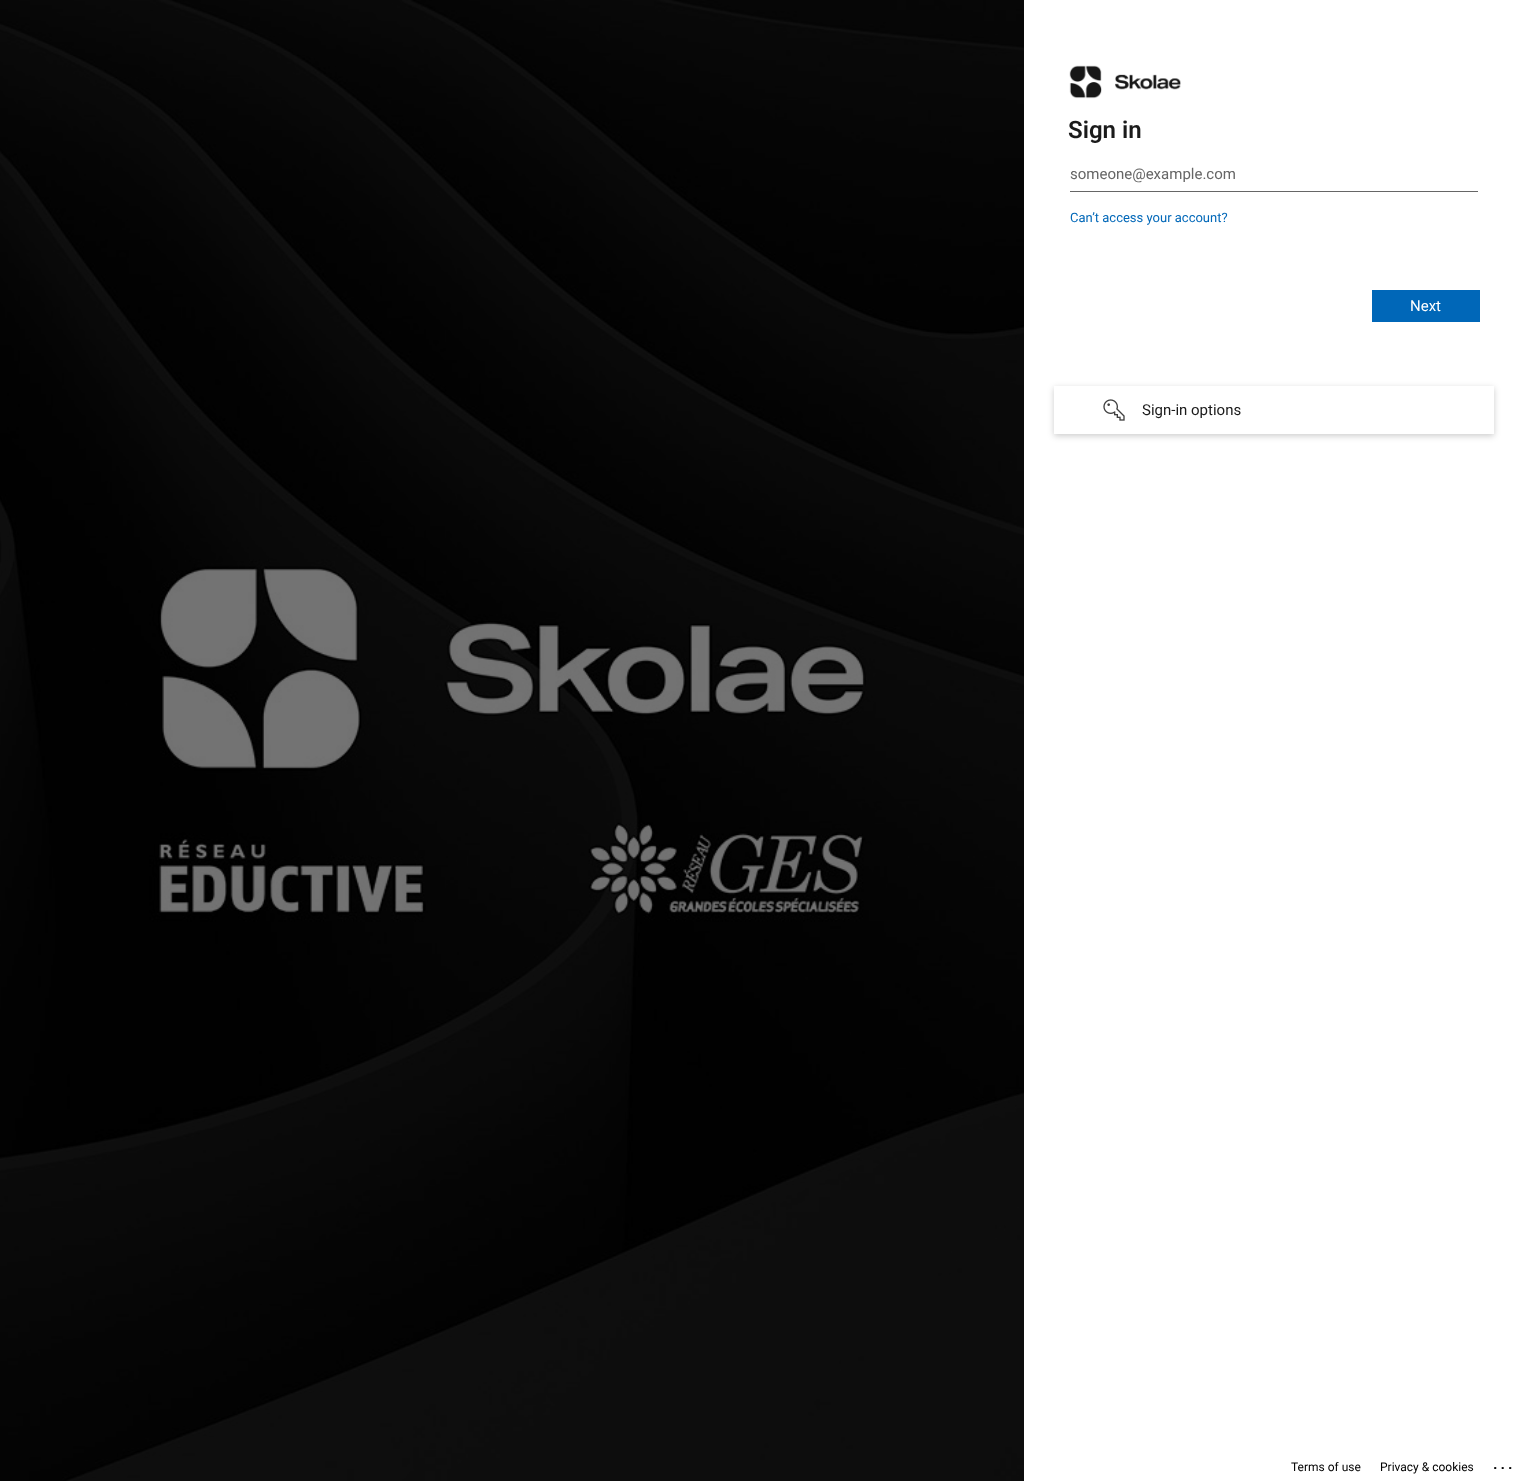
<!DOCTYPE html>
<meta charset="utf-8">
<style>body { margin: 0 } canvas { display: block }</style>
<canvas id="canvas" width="1524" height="1481"></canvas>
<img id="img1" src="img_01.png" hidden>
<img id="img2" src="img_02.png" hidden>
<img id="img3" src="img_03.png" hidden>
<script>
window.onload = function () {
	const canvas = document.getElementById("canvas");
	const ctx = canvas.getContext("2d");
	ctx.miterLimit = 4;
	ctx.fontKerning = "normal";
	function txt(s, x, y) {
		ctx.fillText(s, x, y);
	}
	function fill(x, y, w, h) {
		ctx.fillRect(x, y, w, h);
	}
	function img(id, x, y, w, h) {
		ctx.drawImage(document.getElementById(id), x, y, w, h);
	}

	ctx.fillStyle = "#FFFFFF";
	fill(0, 0, 1524, 1481);
	img("img1", 0, 0, 1024, 1481);
	img("img2", 1069, 65, 112, 34);
	ctx.fillStyle = "#666666";
	fill(1070, 191, 408, 1);
	ctx.fillStyle = "#0067B8";
	fill(1372, 290, 108, 32);
	ctx.save();
	ctx.beginPath();
	ctx.moveTo(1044, 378);
	ctx.lineTo(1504, 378);
	ctx.lineTo(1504, 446);
	ctx.lineTo(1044, 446);
	ctx.closePath();
	ctx.moveTo(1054, 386);
	ctx.lineTo(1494, 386);
	ctx.lineTo(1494, 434);
	ctx.lineTo(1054, 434);
	ctx.closePath();
	ctx.clip("evenodd");
	ctx.fillStyle = "rgba(0, 0, 0, 0.2)";
	ctx.filter = "blur(3px)";
	ctx.beginPath();
	ctx.rect(1054, 388, 440, 48);
	ctx.fill();
	ctx.filter = "none";
	ctx.restore();
	img("img3", 1103, 399, 22, 22);
	ctx.font = "600 24px Roboto";
	ctx.fillStyle = "#1B1B1B";
	txt("Sign in", 1068, 138);
	ctx.font = "15px Roboto";
	ctx.fillStyle = "#666666";
	txt("someone@example.com", 1070, 179);
	ctx.font = "13px Roboto";
	ctx.fillStyle = "#0067B8";
	txt("Can’t access your account?", 1070, 222);
	ctx.font = "15px Roboto";
	ctx.fillStyle = "#FFFFFF";
	txt("Next", 1410, 311);
	ctx.fillStyle = "#1B1B1B";
	txt("Sign-in options", 1142, 415);
	ctx.font = "12px Roboto";
	ctx.fillStyle = "#000000";
	txt("Terms of use", 1291, 1471);
	txt("Privacy & cookies", 1380, 1471);
	ctx.letterSpacing = "3px";
	ctx.font = "600 16px Roboto";
	txt("...", 1493, 1469);
};
</script>
